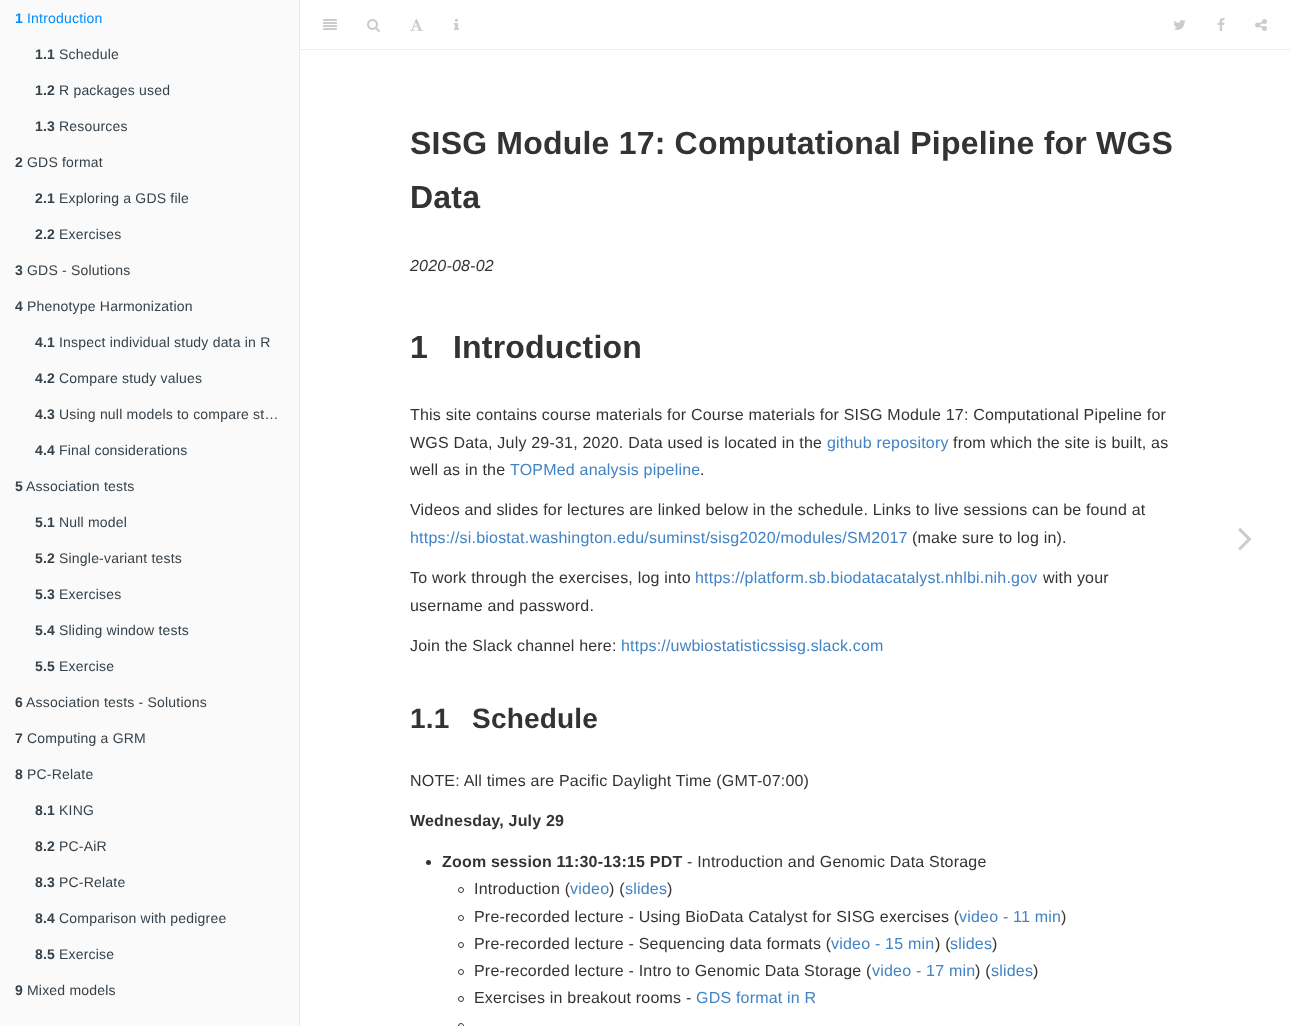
<!DOCTYPE html>
<meta charset="utf-8">
<style>body { margin: 0 } canvas { display: block }</style>
<canvas id="canvas" width="1290" height="1026"></canvas>
<img id="img1" src="img_01.png" hidden>
<img id="img2" src="img_02.png" hidden>
<img id="img3" src="img_03.png" hidden>
<img id="img4" src="img_04.png" hidden>
<img id="img5" src="img_05.png" hidden>
<img id="img6" src="img_06.png" hidden>
<img id="img7" src="img_07.png" hidden>
<img id="img8" src="img_08.png" hidden>
<script>
window.onload = function () {
	const canvas = document.getElementById("canvas");
	const ctx = canvas.getContext("2d");
	ctx.miterLimit = 4;
	ctx.fontKerning = "normal";
	function txt(s, x, y) {
		ctx.fillText(s, x, y);
	}
	function fill(x, y, w, h) {
		ctx.fillRect(x, y, w, h);
	}
	function img(id, x, y, w, h) {
		ctx.drawImage(document.getElementById(id), x, y, w, h);
	}

	ctx.fillStyle = "#FFFFFF";
	fill(0, 0, 1290, 1026);
	ctx.fillStyle = "#FAFAFA";
	fill(0, 0, 299, 1026);
	ctx.fillStyle = "#E9E9E9";
	fill(299, 0, 1, 1026);
	ctx.fillStyle = "#EDEDED";
	fill(300, 49, 990, 1);
	img("img1", 323, 19, 14, 11);
	img("img2", 367, 19, 13, 13);
	img("img3", 410, 19, 13, 12);
	img("img4", 454, 19, 5, 11);
	img("img5", 1173, 20, 13, 10);
	img("img6", 1217, 18, 8, 13);
	img("img7", 1255, 19, 12, 12);
	ctx.fillStyle = "#333333";
	ctx.beginPath();
	ctx.arc(428.5, 862.5, 2.5, 0, Math.PI * 2);
	ctx.fill();
	ctx.beginPath();
	ctx.arc(461, 890, 2.5, 0, Math.PI * 2);
	ctx.strokeStyle = "#333333";
	ctx.stroke();
	ctx.beginPath();
	ctx.arc(461, 918, 2.5, 0, Math.PI * 2);
	ctx.stroke();
	ctx.beginPath();
	ctx.arc(461, 945, 2.5, 0, Math.PI * 2);
	ctx.stroke();
	ctx.beginPath();
	ctx.arc(461, 972, 2.5, 0, Math.PI * 2);
	ctx.stroke();
	ctx.beginPath();
	ctx.arc(461, 999, 2.5, 0, Math.PI * 2);
	ctx.stroke();
	ctx.beginPath();
	ctx.arc(461, 1026, 2.5, 0, Math.PI * 2);
	ctx.stroke();
	img("img8", 1238, 528, 14, 23);
	ctx.letterSpacing = "0.2px";
	ctx.font = "bold 14px Liberation Sans";
	ctx.fillStyle = "#008CFF";
	txt("1", 15, 23);
	ctx.font = "14px Liberation Sans";
	txt("Introduction", 27, 23);
	ctx.font = "bold 14px Liberation Sans";
	ctx.fillStyle = "#364149";
	txt("1.1", 35, 59);
	ctx.font = "14px Liberation Sans";
	txt("Schedule", 59, 59);
	ctx.font = "bold 14px Liberation Sans";
	txt("1.2", 35, 95);
	ctx.font = "14px Liberation Sans";
	txt("R packages used", 59, 95);
	ctx.font = "bold 14px Liberation Sans";
	txt("1.3", 35, 131);
	ctx.font = "14px Liberation Sans";
	txt("Resources", 59, 131);
	ctx.font = "bold 14px Liberation Sans";
	txt("2", 15, 167);
	ctx.font = "14px Liberation Sans";
	txt("GDS format", 27, 167);
	ctx.font = "bold 14px Liberation Sans";
	txt("2.1", 35, 203);
	ctx.font = "14px Liberation Sans";
	txt("Exploring a GDS file", 59, 203);
	ctx.font = "bold 14px Liberation Sans";
	txt("2.2", 35, 239);
	ctx.font = "14px Liberation Sans";
	txt("Exercises", 59, 239);
	ctx.font = "bold 14px Liberation Sans";
	txt("3", 15, 275);
	ctx.font = "14px Liberation Sans";
	txt("GDS - Solutions", 27, 275);
	ctx.font = "bold 14px Liberation Sans";
	txt("4", 15, 311);
	ctx.font = "14px Liberation Sans";
	txt("Phenotype Harmonization", 27, 311);
	ctx.font = "bold 14px Liberation Sans";
	txt("4.1", 35, 347);
	ctx.font = "14px Liberation Sans";
	txt("Inspect individual study data in R", 59, 347);
	ctx.font = "bold 14px Liberation Sans";
	txt("4.2", 35, 383);
	ctx.font = "14px Liberation Sans";
	txt("Compare study values", 59, 383);
	ctx.font = "bold 14px Liberation Sans";
	txt("4.3", 35, 419);
	ctx.font = "14px Liberation Sans";
	txt("Using null models to compare st…", 59, 419);
	ctx.font = "bold 14px Liberation Sans";
	txt("4.4", 35, 455);
	ctx.font = "14px Liberation Sans";
	txt("Final considerations", 59, 455);
	ctx.font = "bold 14px Liberation Sans";
	txt("5", 15, 491);
	ctx.font = "14px Liberation Sans";
	txt("Association tests", 26, 491);
	ctx.font = "bold 14px Liberation Sans";
	txt("5.1", 35, 527);
	ctx.font = "14px Liberation Sans";
	txt("Null model", 59, 527);
	ctx.font = "bold 14px Liberation Sans";
	txt("5.2", 35, 563);
	ctx.font = "14px Liberation Sans";
	txt("Single-variant tests", 59, 563);
	ctx.font = "bold 14px Liberation Sans";
	txt("5.3", 35, 599);
	ctx.font = "14px Liberation Sans";
	txt("Exercises", 59, 599);
	ctx.font = "bold 14px Liberation Sans";
	txt("5.4", 35, 635);
	ctx.font = "14px Liberation Sans";
	txt("Sliding window tests", 59, 635);
	ctx.font = "bold 14px Liberation Sans";
	txt("5.5", 35, 671);
	ctx.font = "14px Liberation Sans";
	txt("Exercise", 59, 671);
	ctx.font = "bold 14px Liberation Sans";
	txt("6", 15, 707);
	ctx.font = "14px Liberation Sans";
	txt("Association tests - Solutions", 26, 707);
	ctx.font = "bold 14px Liberation Sans";
	txt("7", 15, 743);
	ctx.font = "14px Liberation Sans";
	txt("Computing a GRM", 27, 743);
	ctx.font = "bold 14px Liberation Sans";
	txt("8", 15, 779);
	ctx.font = "14px Liberation Sans";
	txt("PC-Relate", 27, 779);
	ctx.font = "bold 14px Liberation Sans";
	txt("8.1", 35, 815);
	ctx.font = "14px Liberation Sans";
	txt("KING", 59, 815);
	ctx.font = "bold 14px Liberation Sans";
	txt("8.2", 35, 851);
	ctx.font = "14px Liberation Sans";
	txt("PC-AiR", 59, 851);
	ctx.font = "bold 14px Liberation Sans";
	txt("8.3", 35, 887);
	ctx.font = "14px Liberation Sans";
	txt("PC-Relate", 59, 887);
	ctx.font = "bold 14px Liberation Sans";
	txt("8.4", 35, 923);
	ctx.font = "14px Liberation Sans";
	txt("Comparison with pedigree", 59, 923);
	ctx.font = "bold 14px Liberation Sans";
	txt("8.5", 35, 959);
	ctx.font = "14px Liberation Sans";
	txt("Exercise", 59, 959);
	ctx.font = "bold 14px Liberation Sans";
	txt("9", 15, 995);
	ctx.font = "14px Liberation Sans";
	txt("Mixed models", 27, 995);
	ctx.font = "bold 32px Liberation Sans";
	ctx.fillStyle = "#333333";
	txt("SISG Module 17: Computational Pipeline for WGS", 410, 154);
	txt("Data", 410, 208);
	ctx.font = "italic 16px Liberation Sans";
	txt("2020-08-02", 410, 271);
	ctx.font = "bold 32px Liberation Sans";
	txt("1", 410, 358);
	txt("Introduction", 453, 358);
	ctx.font = "16px Liberation Sans";
	txt("This site contains course materials for Course materials for SISG Module 17: Computational Pipeline for", 410, 420);
	txt("WGS Data, July 29-31, 2020. Data used is located in the", 410, 448);
	ctx.fillStyle = "#4183C4";
	txt("github repository", 827, 448);
	ctx.fillStyle = "#333333";
	txt("from which the site is built, as", 953, 448);
	txt("well as in the", 410, 475);
	ctx.fillStyle = "#4183C4";
	txt("TOPMed analysis pipeline", 510, 475);
	ctx.fillStyle = "#333333";
	txt(".", 700, 475);
	txt("Videos and slides for lectures are linked below in the schedule. Links to live sessions can be found at", 410, 515);
	ctx.fillStyle = "#4183C4";
	txt("https://si.biostat.washington.edu/suminst/sisg2020/modules/SM2017", 410, 543);
	ctx.fillStyle = "#333333";
	txt("(make sure to log in).", 912, 543);
	txt("To work through the exercises, log into", 410, 583);
	ctx.fillStyle = "#4183C4";
	txt("https://platform.sb.biodatacatalyst.nhlbi.nih.gov", 695, 583);
	ctx.fillStyle = "#333333";
	txt("with your", 1043, 583);
	txt("username and password.", 410, 611);
	txt("Join the Slack channel here:", 410, 651);
	ctx.fillStyle = "#4183C4";
	txt("https://uwbiostatisticssisg.slack.com", 621, 651);
	ctx.font = "bold 28px Liberation Sans";
	ctx.fillStyle = "#333333";
	txt("1.1", 410, 728);
	txt("Schedule", 472, 728);
	ctx.font = "16px Liberation Sans";
	txt("NOTE: All times are Pacific Daylight Time (GMT-07:00)", 410, 786);
	ctx.font = "bold 16px Liberation Sans";
	txt("Wednesday, July 29", 410, 826);
	txt("Zoom session 11:30-13:15 PDT", 442, 867);
	ctx.font = "16px Liberation Sans";
	txt("- Introduction and Genomic Data Storage", 687, 867);
	txt("Introduction (", 474, 894);
	ctx.fillStyle = "#4183C4";
	txt("video", 570, 894);
	ctx.fillStyle = "#333333";
	txt(") (", 609, 894);
	ctx.fillStyle = "#4183C4";
	txt("slides", 625, 894);
	ctx.fillStyle = "#333333";
	txt(")", 667, 894);
	txt("Pre-recorded lecture - Using BioData Catalyst for SISG exercises (", 474, 922);
	ctx.fillStyle = "#4183C4";
	txt("video - 11 min", 959, 922);
	ctx.fillStyle = "#333333";
	txt(")", 1061, 922);
	txt("Pre-recorded lecture - Sequencing data formats (", 474, 949);
	ctx.fillStyle = "#4183C4";
	txt("video - 15 min", 831, 949);
	ctx.fillStyle = "#333333";
	txt(") (", 935, 949);
	ctx.fillStyle = "#4183C4";
	txt("slides", 950, 949);
	ctx.fillStyle = "#333333";
	txt(")", 992, 949);
	txt("Pre-recorded lecture - Intro to Genomic Data Storage (", 474, 976);
	ctx.fillStyle = "#4183C4";
	txt("video - 17 min", 872, 976);
	ctx.fillStyle = "#333333";
	txt(") (", 975, 976);
	ctx.fillStyle = "#4183C4";
	txt("slides", 991, 976);
	ctx.fillStyle = "#333333";
	txt(")", 1033, 976);
	txt("Exercises in breakout rooms -", 474, 1003);
	ctx.fillStyle = "#4183C4";
	txt("GDS format in R", 696, 1003);
};
</script>
